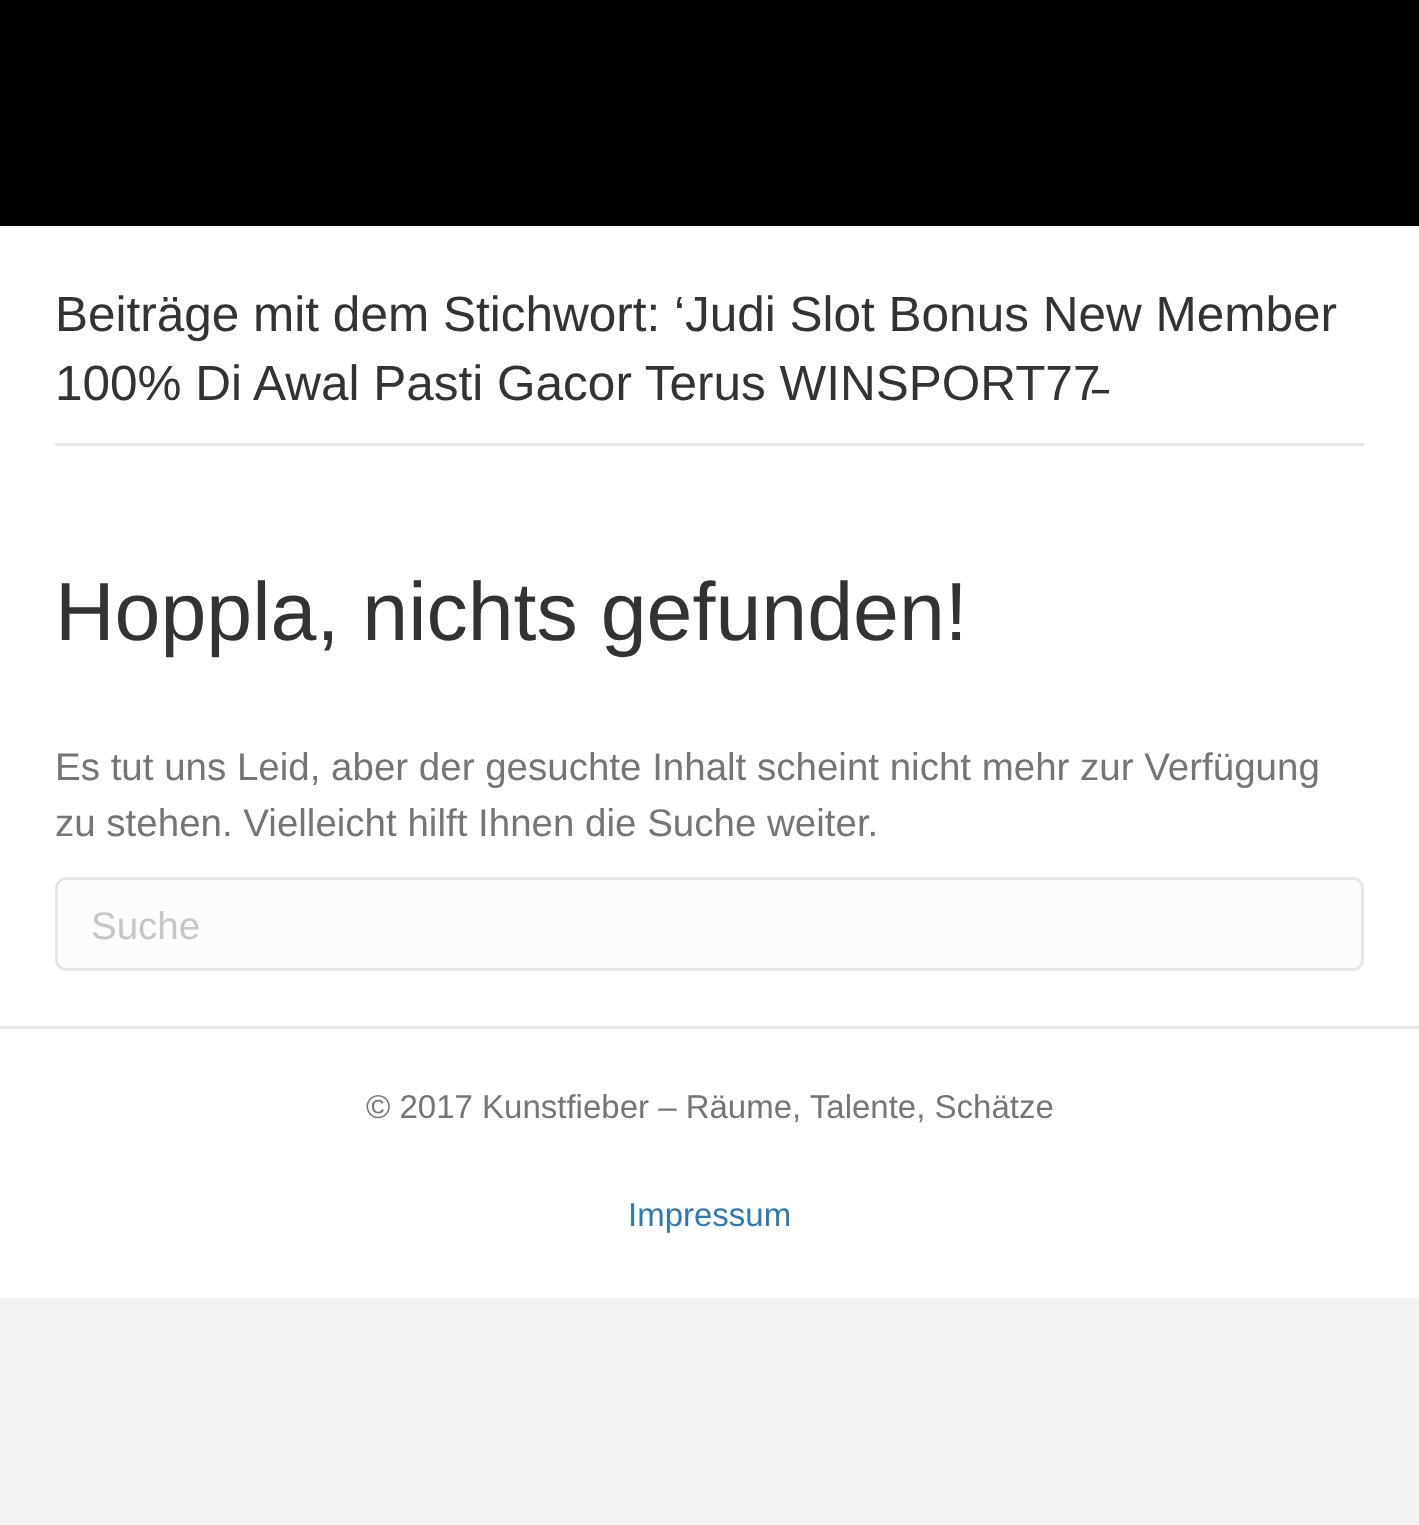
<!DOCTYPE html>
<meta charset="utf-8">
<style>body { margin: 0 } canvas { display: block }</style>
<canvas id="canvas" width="1419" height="1525"></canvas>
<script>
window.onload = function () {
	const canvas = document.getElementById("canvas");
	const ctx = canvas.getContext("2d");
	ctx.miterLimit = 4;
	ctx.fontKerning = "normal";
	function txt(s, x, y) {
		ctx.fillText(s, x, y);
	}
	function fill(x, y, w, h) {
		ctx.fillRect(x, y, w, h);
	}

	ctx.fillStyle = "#F2F2F2";
	fill(0, 0, 1419, 1525);
	ctx.fillStyle = "#000000";
	fill(0, 0, 1419, 226);
	ctx.fillStyle = "#FFFFFF";
	fill(0, 226, 1419, 800);
	ctx.fillStyle = "#E6E6E6";
	fill(55, 443, 1309, 3);
	ctx.fillStyle = "#FCFCFC";
	ctx.beginPath();
	ctx.roundRect(56.5, 878.5, 1306, 91, 9.5);
	ctx.fill();
	ctx.strokeStyle = "#E6E6E6";
	ctx.lineWidth = 3;
	ctx.stroke();
	ctx.fillStyle = "#FFFFFF";
	fill(0, 1029, 1419, 269);
	ctx.fillStyle = "#E6E6E6";
	fill(0, 1026, 1419, 3);
	ctx.font = "49.5px Liberation Sans";
	ctx.fillStyle = "#333333";
	txt("Beiträge mit dem Stichwort: ‘Judi Slot Bonus New Member", 55, 331);
	txt("100% Di Awal Pasti Gacor Terus WINSPORT77̵", 55, 400);
	ctx.font = "82.5px Liberation Sans";
	txt("Hoppla, nichts gefunden!", 55, 640);
	ctx.font = "38.5px Liberation Sans";
	ctx.fillStyle = "#757575";
	txt("Es tut uns Leid, aber der gesuchte Inhalt scheint nicht mehr zur Verfügung", 55, 780);
	txt("zu stehen. Vielleicht hilft Ihnen die Suche weiter.", 55, 836);
	ctx.fillStyle = "#C6C6C6";
	txt("Suche", 91, 939);
	ctx.font = "33px Liberation Sans";
	ctx.fillStyle = "#757575";
	txt("© 2017 Kunstfieber – Räume, Talente, Schätze", 366, 1118);
	ctx.fillStyle = "#2B7BB9";
	txt("Impressum", 628, 1226);
};
</script>
